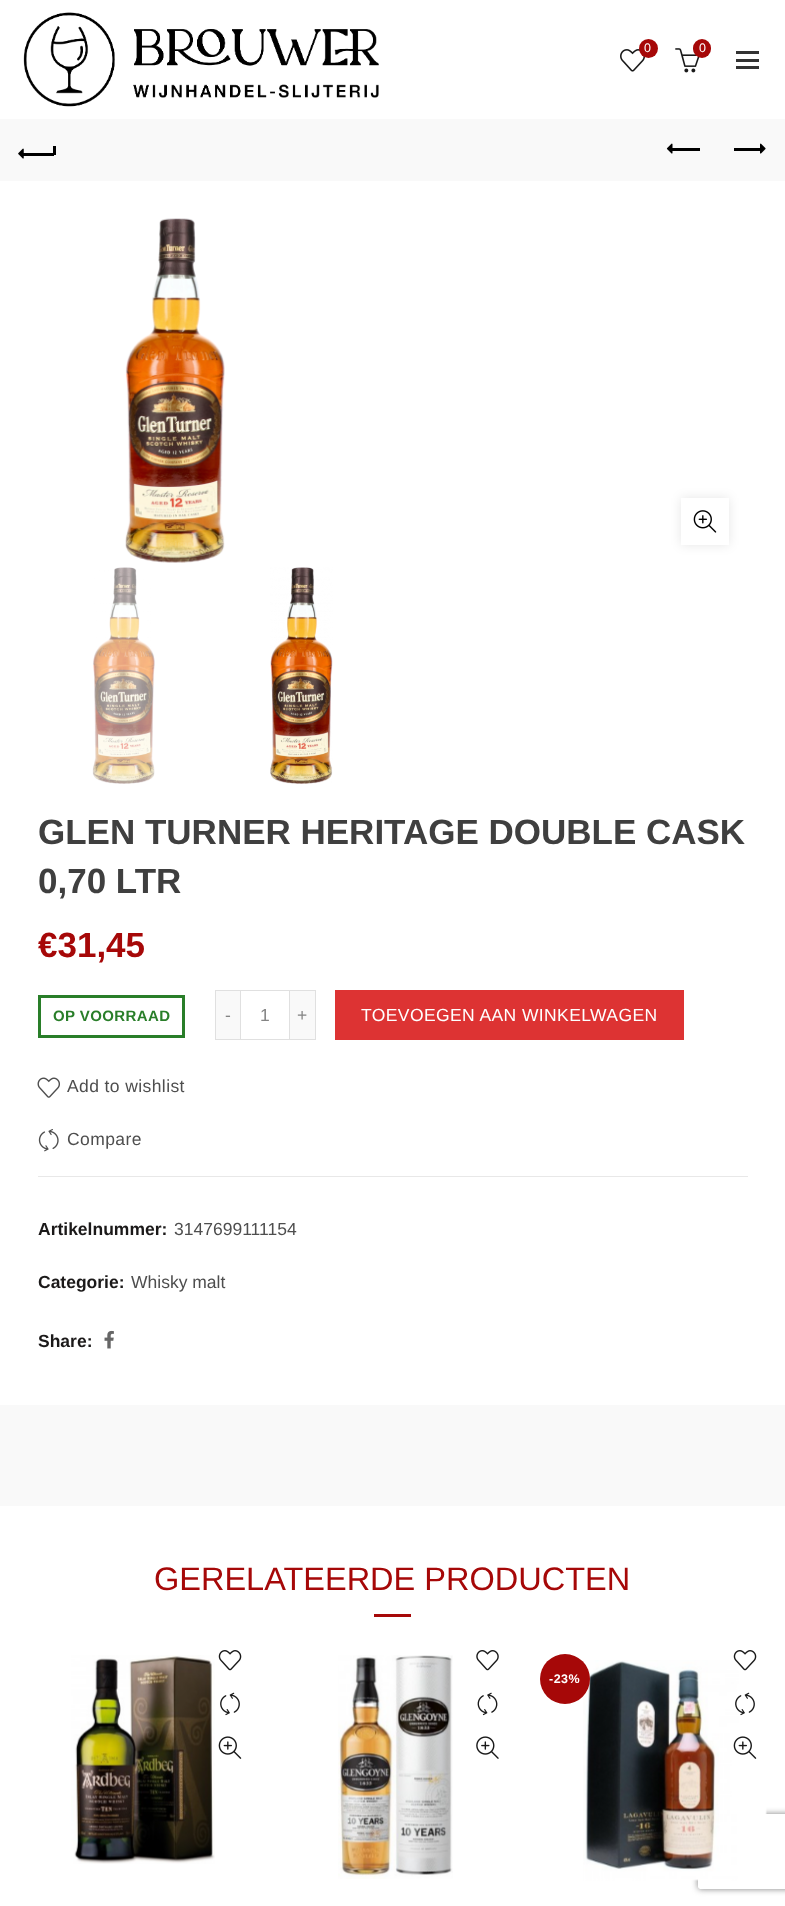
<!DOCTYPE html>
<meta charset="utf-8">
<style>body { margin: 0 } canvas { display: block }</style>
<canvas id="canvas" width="785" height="1906"></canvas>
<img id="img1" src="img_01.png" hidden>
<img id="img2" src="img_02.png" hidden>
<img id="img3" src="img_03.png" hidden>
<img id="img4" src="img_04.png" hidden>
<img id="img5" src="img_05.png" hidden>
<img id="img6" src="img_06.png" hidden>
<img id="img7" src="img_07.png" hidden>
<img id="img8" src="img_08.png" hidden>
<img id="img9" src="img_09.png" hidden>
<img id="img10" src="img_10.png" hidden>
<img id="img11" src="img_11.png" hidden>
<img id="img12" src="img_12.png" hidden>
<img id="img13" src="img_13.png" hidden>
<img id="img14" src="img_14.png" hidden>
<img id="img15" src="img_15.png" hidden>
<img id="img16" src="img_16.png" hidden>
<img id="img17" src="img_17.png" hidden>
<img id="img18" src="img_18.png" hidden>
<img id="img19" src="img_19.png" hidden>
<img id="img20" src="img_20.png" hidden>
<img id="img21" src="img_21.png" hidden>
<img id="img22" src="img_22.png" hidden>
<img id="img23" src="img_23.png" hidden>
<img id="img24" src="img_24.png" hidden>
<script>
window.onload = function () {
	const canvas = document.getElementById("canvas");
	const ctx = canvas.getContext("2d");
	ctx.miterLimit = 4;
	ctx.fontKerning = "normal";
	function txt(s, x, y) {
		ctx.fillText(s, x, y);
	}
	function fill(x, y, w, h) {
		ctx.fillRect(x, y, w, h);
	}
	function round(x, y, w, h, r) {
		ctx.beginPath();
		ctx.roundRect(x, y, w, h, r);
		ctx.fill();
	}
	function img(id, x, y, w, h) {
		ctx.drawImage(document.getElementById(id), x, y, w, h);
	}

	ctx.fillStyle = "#FFFFFF";
	fill(0, 0, 785, 1906);
	img("img1", 23, 12, 356, 95);
	img("img2", 620, 49, 25, 23);
	ctx.fillStyle = "#A60808";
	ctx.beginPath();
	ctx.arc(648.5, 48.5, 9.5, 0, Math.PI * 2);
	ctx.fill();
	img("img3", 675, 48, 25, 25);
	round(693, 39, 18, 19, 9);
	ctx.fillStyle = "#333333";
	fill(736, 59, 23, 3);
	fill(736, 51, 23, 3);
	fill(736, 66, 23, 3);
	ctx.fillStyle = "#F9F9F9";
	fill(0, 119, 785, 62);
	ctx.fillStyle = "#000000";
	fill(23, 153, 31, 3);
	img("img4", 18, 148, 6, 11);
	fill(53, 146, 3, 9);
	fill(671, 148, 29, 3);
	img("img5", 666, 143, 7, 11);
	fill(734, 148, 29, 3);
	img("img6", 760, 143, 6, 11);
	img("img7", 125, 218, 100, 345);
	ctx.fillStyle = "rgba(0, 0, 0, 0.1)";
	ctx.filter = "blur(5.5px)";
	ctx.beginPath();
	ctx.rect(681, 498, 48, 47);
	ctx.fill();
	ctx.filter = "none";
	ctx.fillStyle = "#FFFFFF";
	fill(681, 498, 48, 47);
	img("img8", 693, 510, 24, 23);
	img("img9", 92, 567, 63, 217);
	img("img10", 270, 567, 63, 217);
	ctx.strokeStyle = "#297E29";
	ctx.lineWidth = 3;
	ctx.strokeRect(39.5, 996.5, 144, 40);
	ctx.fillStyle = "#F9F9F9";
	fill(216, 991, 24, 48);
	ctx.fillStyle = "#E0E0E0";
	fill(215, 990, 25, 1);
	fill(215, 1039, 25, 1);
	fill(215, 990, 1, 50);
	ctx.strokeStyle = "#E0E0E0";
	ctx.lineWidth = 1;
	ctx.strokeRect(240.5, 990.5, 49, 49);
	ctx.fillStyle = "#F9F9F9";
	fill(290, 991, 25, 48);
	ctx.fillStyle = "#E0E0E0";
	fill(290, 990, 26, 1);
	fill(315, 990, 1, 50);
	fill(290, 1039, 26, 1);
	ctx.fillStyle = "#DD3333";
	fill(335, 990, 349, 50);
	img("img11", 37, 1077, 23, 21);
	img("img12", 38, 1129, 21, 23);
	ctx.fillStyle = "#E8E8E8";
	fill(38, 1176, 710, 1);
	img("img13", 104, 1330, 10, 19);
	ctx.fillStyle = "#F9F9F9";
	fill(0, 1405, 785, 101);
	ctx.fillStyle = "#A60808";
	fill(374, 1614, 37, 3);
	img("img14", 71, 1655, 144, 209);
	img("img15", 218, 1650, 24, 21);
	img("img16", 220, 1692, 20, 24);
	img("img17", 218, 1736, 24, 23);
	img("img18", 338, 1655, 115, 224);
	img("img19", 476, 1650, 23, 21);
	img("img20", 477, 1692, 21, 24);
	img("img21", 476, 1736, 23, 23);
	ctx.save();
	ctx.beginPath();
	ctx.moveTo(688, 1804);
	ctx.lineTo(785, 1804);
	ctx.lineTo(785, 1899);
	ctx.lineTo(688, 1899);
	ctx.closePath();
	ctx.moveTo(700.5, 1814);
	ctx.lineTo(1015.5, 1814);
	ctx.bezierCurveTo(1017, 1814, 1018, 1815, 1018, 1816.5);
	ctx.lineTo(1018, 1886.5);
	ctx.bezierCurveTo(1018, 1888, 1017, 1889, 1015.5, 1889);
	ctx.lineTo(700.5, 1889);
	ctx.bezierCurveTo(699, 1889, 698, 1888, 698, 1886.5);
	ctx.lineTo(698, 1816.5);
	ctx.bezierCurveTo(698, 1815, 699, 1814, 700.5, 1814);
	ctx.closePath();
	ctx.clip("evenodd");
	ctx.fillStyle = "#808080";
	ctx.filter = "blur(3px)";
	ctx.beginPath();
	ctx.roundRect(698, 1814, 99, 75, 2.5);
	ctx.fill();
	ctx.filter = "none";
	ctx.restore();
	img("img22", 583, 1660, 184, 221);
	ctx.beginPath();
	ctx.arc(565, 1679, 25, 0, Math.PI * 2);
	ctx.fill();
	img("img23", 733, 1650, 24, 21);
	img("img24", 735, 1692, 20, 24);
	img("img17", 733, 1736, 24, 23);
	ctx.font = "12.5px Liberation Sans";
	ctx.fillStyle = "#FFFFFF";
	txt("0", 644, 52);
	txt("0", 699, 52);
	ctx.font = "bold 35px Liberation Sans";
	ctx.fillStyle = "#3F3F3F";
	txt("GLEN TURNER HERITAGE DOUBLE CASK", 38, 844);
	txt("0,70 LTR", 38, 893);
	ctx.fillStyle = "#A60808";
	txt("€31,45", 38, 957);
	ctx.letterSpacing = "0.4px";
	ctx.font = "bold 15px Liberation Sans";
	ctx.fillStyle = "#297E29";
	txt("OP VOORRAAD", 53, 1021);
	ctx.letterSpacing = "0px";
	ctx.font = "17.5px Liberation Sans";
	ctx.fillStyle = "#848484";
	txt("-", 225, 1021);
	txt("1", 260, 1021);
	txt("+", 297, 1021);
	ctx.letterSpacing = "0.4px";
	ctx.fillStyle = "#FFFFFF";
	txt("TOEVOEGEN AAN WINKELWAGEN", 361, 1021);
	ctx.fillStyle = "#4E4E4E";
	txt("Add to wishlist", 67, 1092);
	txt("Compare", 67, 1145);
	ctx.letterSpacing = "0px";
	ctx.font = "bold 17.5px Liberation Sans";
	ctx.fillStyle = "#1B1919";
	txt("Artikelnummer:", 38, 1235);
	ctx.font = "17.5px Liberation Sans";
	ctx.fillStyle = "#4E4E4E";
	txt("3147699111154", 174, 1235);
	ctx.font = "bold 17.5px Liberation Sans";
	ctx.fillStyle = "#1B1919";
	txt("Categorie:", 38, 1288);
	ctx.font = "17.5px Liberation Sans";
	ctx.fillStyle = "#4E4E4E";
	txt("Whisky malt", 131, 1288);
	ctx.font = "bold 17.5px Liberation Sans";
	ctx.fillStyle = "#1B1919";
	txt("Share:", 38, 1347);
	ctx.font = "32.5px Liberation Sans";
	ctx.fillStyle = "#A60808";
	txt("GERELATEERDE PRODUCTEN", 154, 1590);
	ctx.letterSpacing = "0.5px";
	ctx.font = "bold 12.5px Liberation Sans";
	ctx.fillStyle = "#FFFFFF";
	txt("-23%", 549, 1683);
};
</script>
